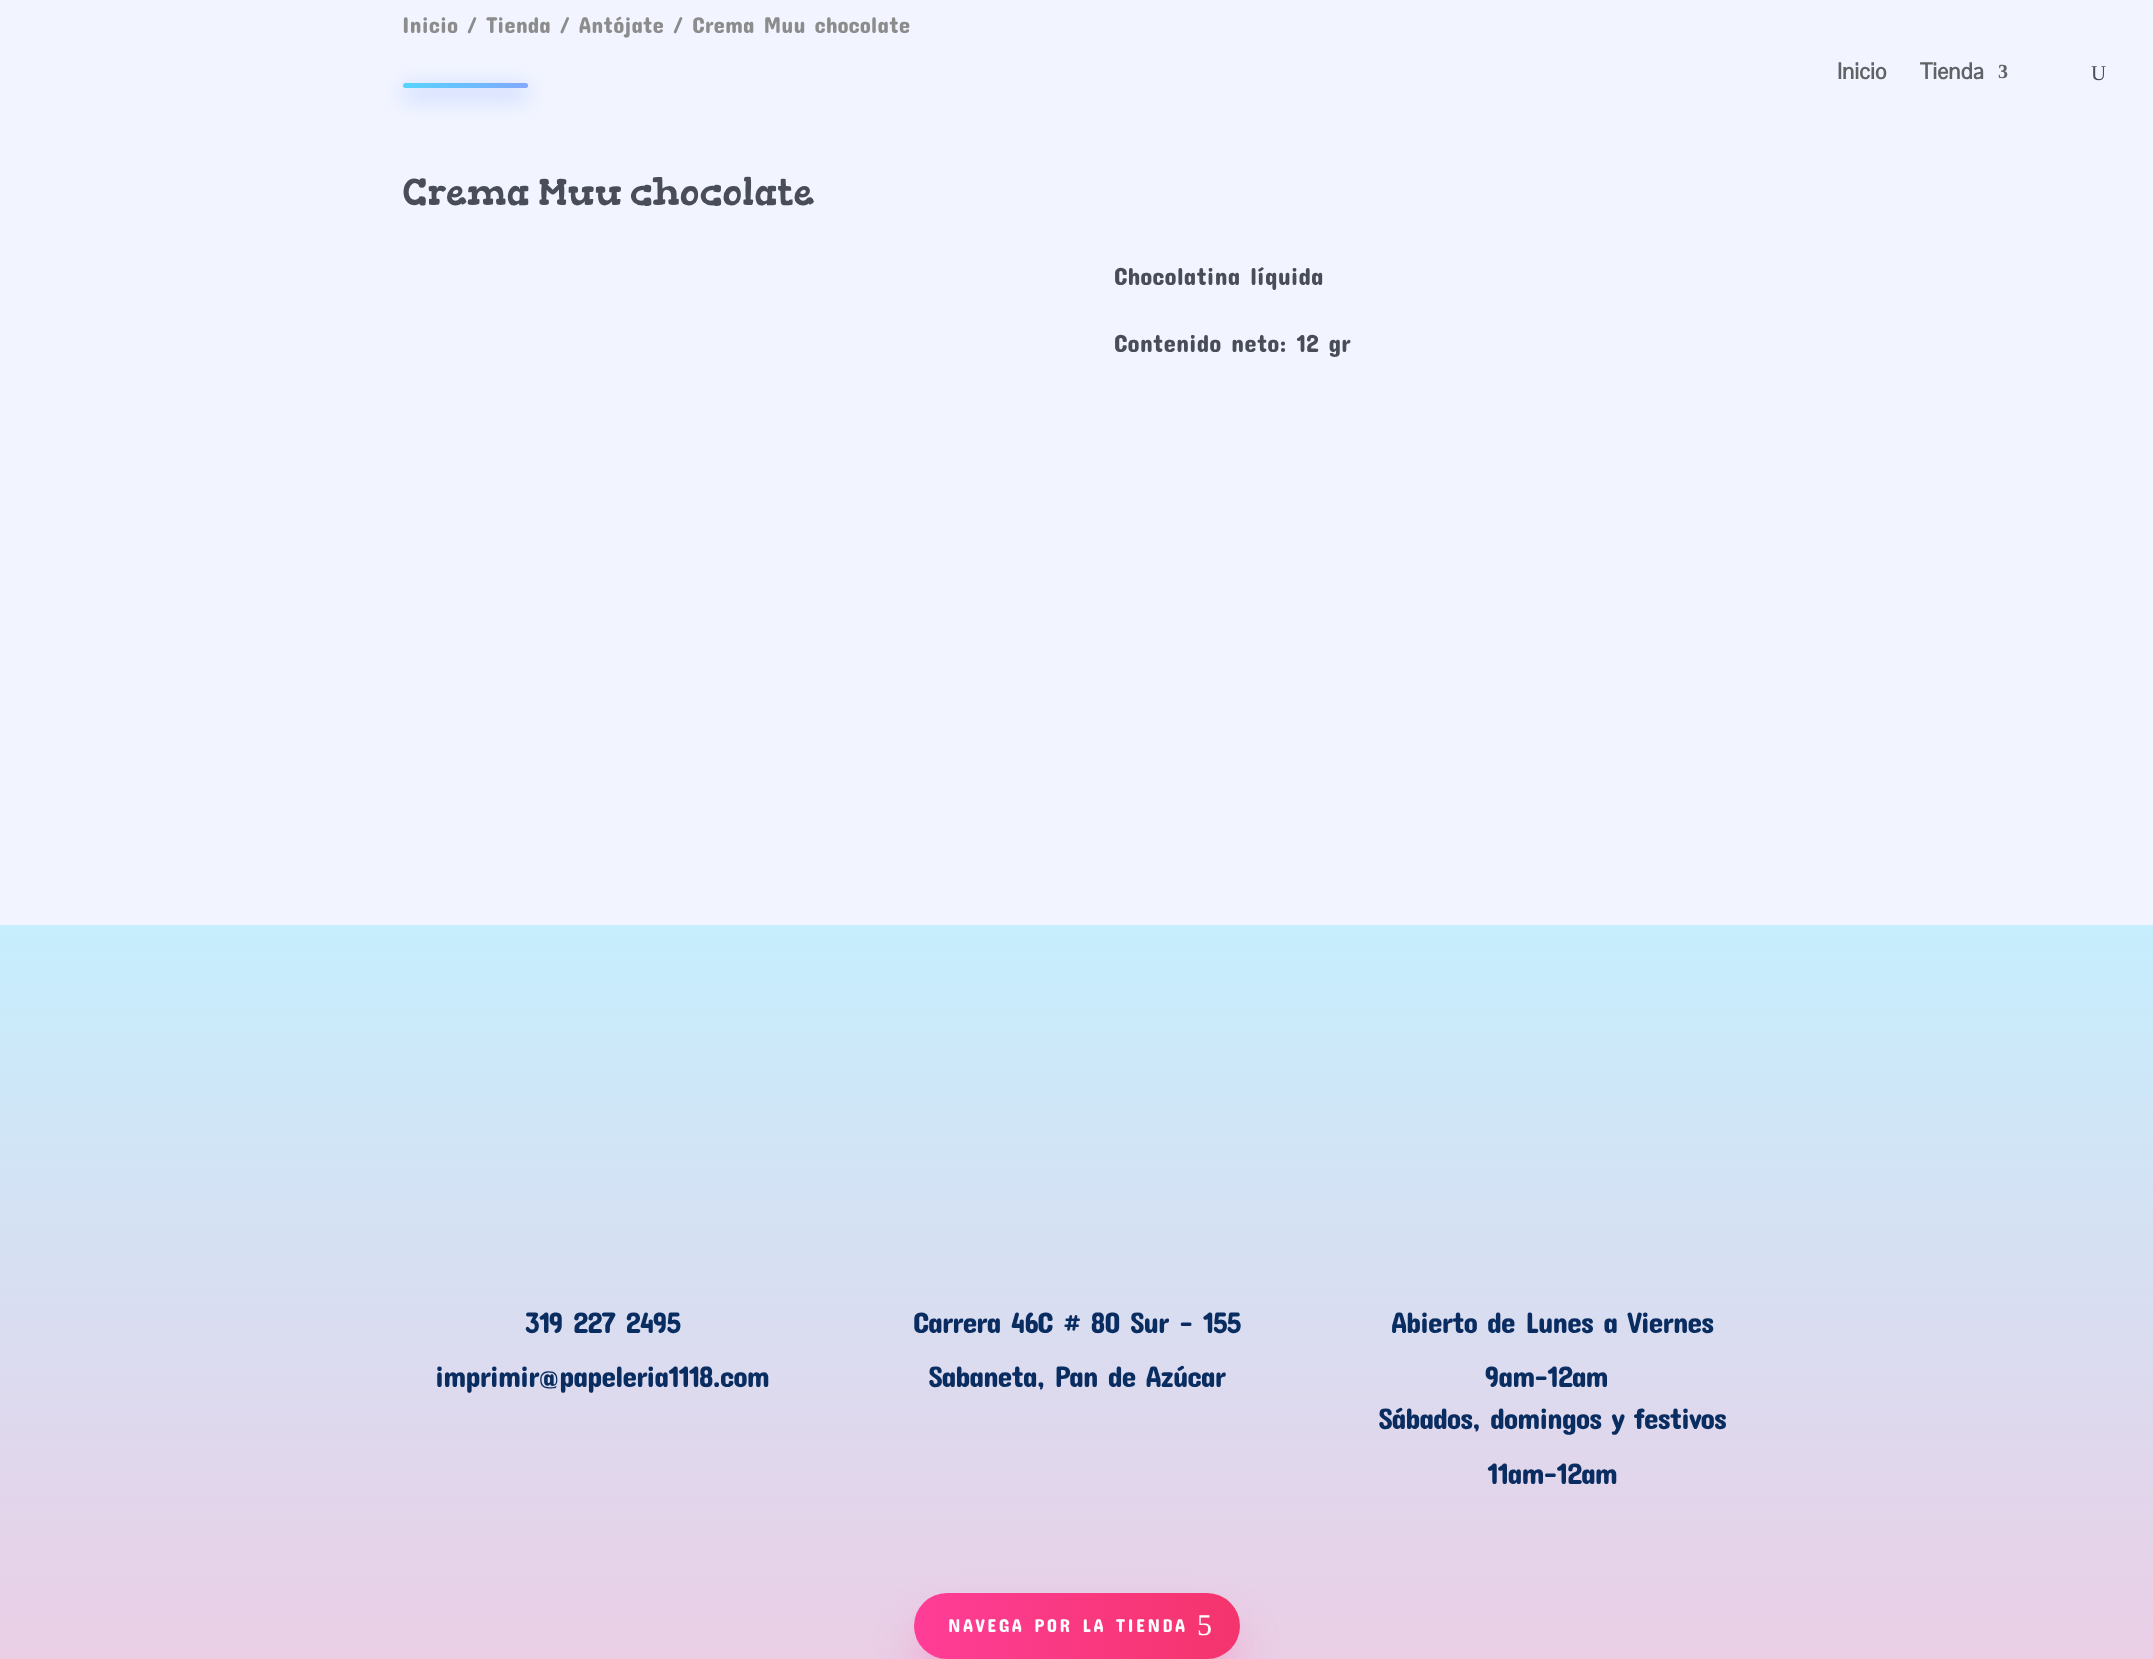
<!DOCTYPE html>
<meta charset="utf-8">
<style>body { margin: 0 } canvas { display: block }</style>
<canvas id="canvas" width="2153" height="1659"></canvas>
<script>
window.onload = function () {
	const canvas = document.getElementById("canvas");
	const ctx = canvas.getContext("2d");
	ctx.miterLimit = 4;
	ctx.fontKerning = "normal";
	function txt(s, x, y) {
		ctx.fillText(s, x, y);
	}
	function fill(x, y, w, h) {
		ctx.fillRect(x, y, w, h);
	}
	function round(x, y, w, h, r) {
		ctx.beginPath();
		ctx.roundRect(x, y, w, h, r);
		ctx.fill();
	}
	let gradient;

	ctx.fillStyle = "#F2F5FF";
	fill(0, 0, 2153, 1659);
	ctx.fillStyle = "#82A8FF";
	ctx.filter = "blur(11px)";
	ctx.beginPath();
	ctx.roundRect(403, 90, 125, 5, 2.5);
	ctx.fill();
	ctx.filter = "none";
	gradient = ctx.createLinearGradient(403, 85, 528, 85);
	gradient.addColorStop(0, "#56D4FF");
	gradient.addColorStop(1, "#82A8FF");
	ctx.fillStyle = gradient;
	round(403, 83, 125, 5, 2.5);
	gradient = ctx.createLinearGradient(1077, 925, 1077, 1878);
	gradient.addColorStop(0, "#C6EEFD");
	gradient.addColorStop(1, "#F5C5DF");
	ctx.fillStyle = gradient;
	fill(0, 925, 2153, 734);
	ctx.fillStyle = "rgba(255, 61, 151, 0.5)";
	ctx.filter = "blur(25px)";
	ctx.beginPath();
	ctx.roundRect(926, 1630, 302, 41, 20.5);
	ctx.fill();
	ctx.filter = "none";
	gradient = ctx.createLinearGradient(914, 1626, 1240, 1626);
	gradient.addColorStop(0, "#FF3D97");
	gradient.addColorStop(1, "#F4346C");
	ctx.fillStyle = gradient;
	round(914, 1593, 326, 66, 33);
	ctx.font = "23px Concert One";
	ctx.fillStyle = "#8C8C8C";
	txt("Inicio / Tienda / Antójate / Crema Muu chocolate", 402, 33);
	ctx.font = "37.5px Gorditas";
	ctx.fillStyle = "#494D59";
	txt("Crema Muu chocolate", 402, 205);
	ctx.font = "25px Concert One";
	txt("Chocolatina líquida", 1114, 285);
	txt("Contenido neto: 12 gr", 1114, 352);
	ctx.letterSpacing = "-1.25px";
	ctx.font = "30px Concert One";
	ctx.fillStyle = "#0A2D61";
	txt("319 227 2495", 525, 1333);
	txt("imprimir@papeleria1118.com", 435, 1387);
	txt("Carrera 46C # 80 Sur – 155", 913, 1333);
	txt("Sabaneta, Pan de Azúcar", 928, 1387);
	txt("Abierto de Lunes a Viernes", 1391, 1333);
	txt("9am-12am", 1485, 1387);
	txt("Sábados, domingos y festivos", 1378, 1429);
	txt("11am-12am", 1487, 1484);
	ctx.letterSpacing = "2.5px";
	ctx.font = "18.75px Concert One";
	ctx.fillStyle = "#FFFFFF";
	txt("NAVEGA POR LA TIENDA", 948, 1632);
	ctx.font = "30px Liberation Serif";
	txt("5", 1197, 1635);
	ctx.letterSpacing = "0px";
	ctx.font = "bold 22.5px Pontano Sans";
	ctx.fillStyle = "#616266";
	txt("Inicio", 1837, 79);
	txt("Tienda", 1920, 79);
	ctx.font = "bold 20px Liberation Serif";
	txt("3", 1998, 78);
	ctx.font = "21px Liberation Serif";
	ctx.fillStyle = "#494D59";
	txt("U", 2091, 80);
};
</script>
